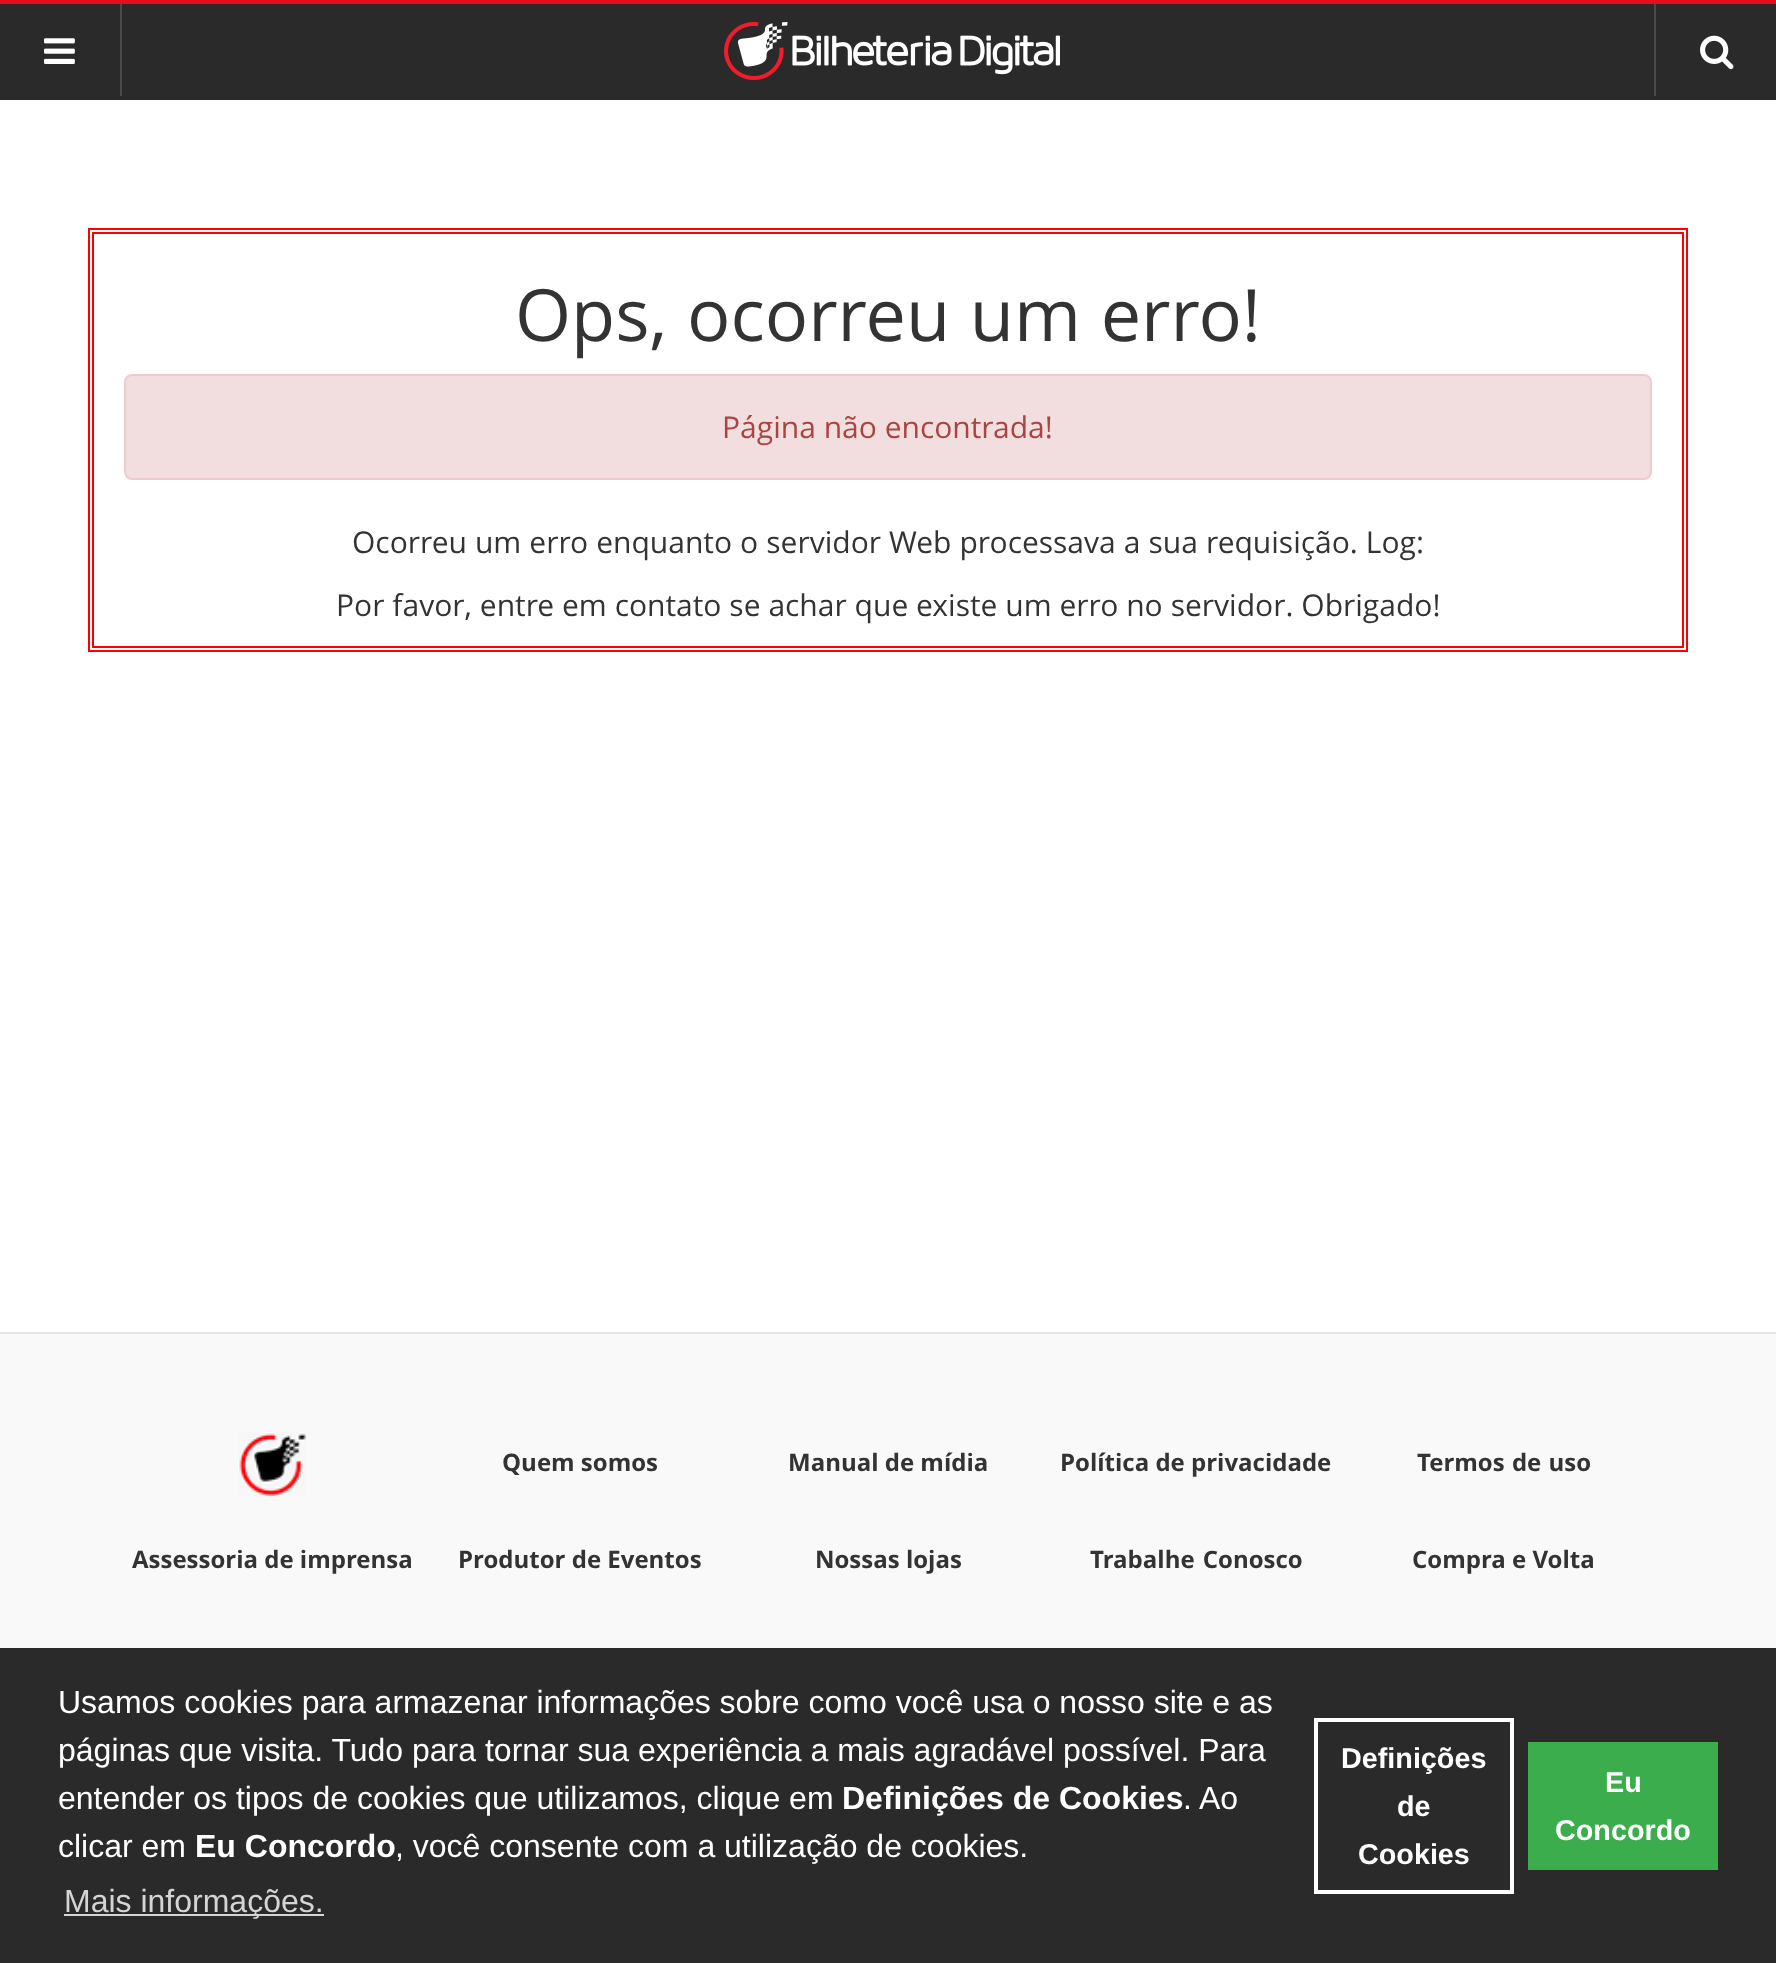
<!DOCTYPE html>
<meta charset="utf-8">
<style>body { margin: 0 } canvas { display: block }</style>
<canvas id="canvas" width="1776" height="1963"></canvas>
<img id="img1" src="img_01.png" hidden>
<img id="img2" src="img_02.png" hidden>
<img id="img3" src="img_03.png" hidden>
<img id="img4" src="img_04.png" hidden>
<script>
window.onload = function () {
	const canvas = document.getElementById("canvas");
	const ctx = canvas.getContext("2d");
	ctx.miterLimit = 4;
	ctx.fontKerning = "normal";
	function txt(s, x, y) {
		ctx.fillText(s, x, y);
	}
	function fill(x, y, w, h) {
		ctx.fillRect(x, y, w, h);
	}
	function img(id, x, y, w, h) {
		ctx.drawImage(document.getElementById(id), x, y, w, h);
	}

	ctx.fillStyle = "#FFFFFF";
	fill(0, 0, 1776, 1963);
	ctx.fillStyle = "#2A2A2A";
	fill(0, 4, 1776, 96);
	ctx.fillStyle = "#E60D1E";
	fill(0, 0, 1776, 4);
	ctx.fillStyle = "#4A4A4A";
	fill(120, 4, 2, 92);
	img("img1", 44, 38, 31, 26);
	img("img2", 724, 22, 336, 58);
	fill(1654, 4, 2, 92);
	img("img3", 1700, 35, 34, 35);
	ctx.strokeStyle = "#FF0000";
	ctx.lineWidth = 2;
	ctx.strokeRect(89, 229, 1598, 422);
	ctx.strokeRect(93, 233, 1590, 414);
	ctx.fillStyle = "#F2DEDE";
	ctx.beginPath();
	ctx.roundRect(125, 375, 1526, 104, 7);
	ctx.fill();
	ctx.strokeStyle = "#EBCCD1";
	ctx.stroke();
	ctx.fillStyle = "#F9F9F9";
	fill(0, 1334, 1776, 314);
	ctx.fillStyle = "#E5E5E5";
	fill(0, 1332, 1776, 2);
	img("img4", 238, 1432, 68, 64);
	ctx.fillStyle = "#2A2A2A";
	fill(0, 1648, 1776, 315);
	ctx.fillStyle = "#D4D4D4";
	fill(64, 1914, 260, 2);
	ctx.strokeStyle = "#FFFFFF";
	ctx.lineWidth = 4;
	ctx.strokeRect(1316, 1720, 196, 172);
	ctx.fillStyle = "#3CAD4C";
	fill(1528, 1742, 190, 128);
	ctx.wordSpacing = "1px";
	ctx.font = "72px Open Sans";
	ctx.fillStyle = "#333333";
	txt("Ops, ocorreu um erro!", 515, 341);
	ctx.wordSpacing = "0px";
	ctx.font = "30px Open Sans";
	ctx.fillStyle = "#A94442";
	txt("Página não encontrada!", 722, 438);
	ctx.wordSpacing = "0.25px";
	ctx.fillStyle = "#333333";
	txt("Ocorreu um erro enquanto o servidor Web processava a sua requisição. Log:", 352, 553);
	ctx.wordSpacing = "0.1px";
	txt("Por favor, entre em contato se achar que existe um erro no servidor. Obrigado!", 336, 616);
	ctx.wordSpacing = "0px";
	ctx.font = "bold 24px Open Sans";
	txt("Quem somos", 502, 1471);
	txt("Manual de mídia", 788, 1471);
	txt("Política de privacidade", 1060, 1471);
	ctx.wordSpacing = "1px";
	txt("Termos de uso", 1417, 1471);
	ctx.wordSpacing = "0px";
	txt("Assessoria de imprensa", 132, 1568);
	txt("Produtor de Eventos", 458, 1568);
	txt("Nossas lojas", 815, 1568);
	ctx.wordSpacing = "2px";
	txt("Trabalhe Conosco", 1090, 1568);
	ctx.wordSpacing = "0px";
	txt("Compra e Volta", 1412, 1568);
	ctx.font = "32px Liberation Sans";
	ctx.fillStyle = "#FFFFFF";
	txt("Usamos cookies para armazenar informações sobre como você usa o nosso site e as", 58, 1713);
	txt("páginas que visita. Tudo para tornar sua experiência a mais agradável possível. Para", 58, 1761);
	txt("entender os tipos de cookies que utilizamos, clique em", 58, 1809);
	ctx.font = "bold 32px Liberation Sans";
	txt("Definições de Cookies", 842, 1809);
	ctx.font = "32px Liberation Sans";
	txt(". Ao", 1183, 1809);
	txt("clicar em", 58, 1857);
	ctx.font = "bold 32px Liberation Sans";
	txt("Eu Concordo", 195, 1857);
	ctx.font = "32px Liberation Sans";
	txt(", você consente com a utilização de cookies.", 395, 1857);
	ctx.fillStyle = "#D4D4D4";
	txt("Mais informações.", 64, 1912);
	ctx.font = "bold 28.75px Liberation Sans";
	ctx.fillStyle = "#FFFFFF";
	txt("Definições", 1341, 1768);
	txt("de", 1397, 1816);
	txt("Cookies", 1358, 1864);
	txt("Eu", 1605, 1792);
	txt("Concordo", 1555, 1840);
};
</script>
